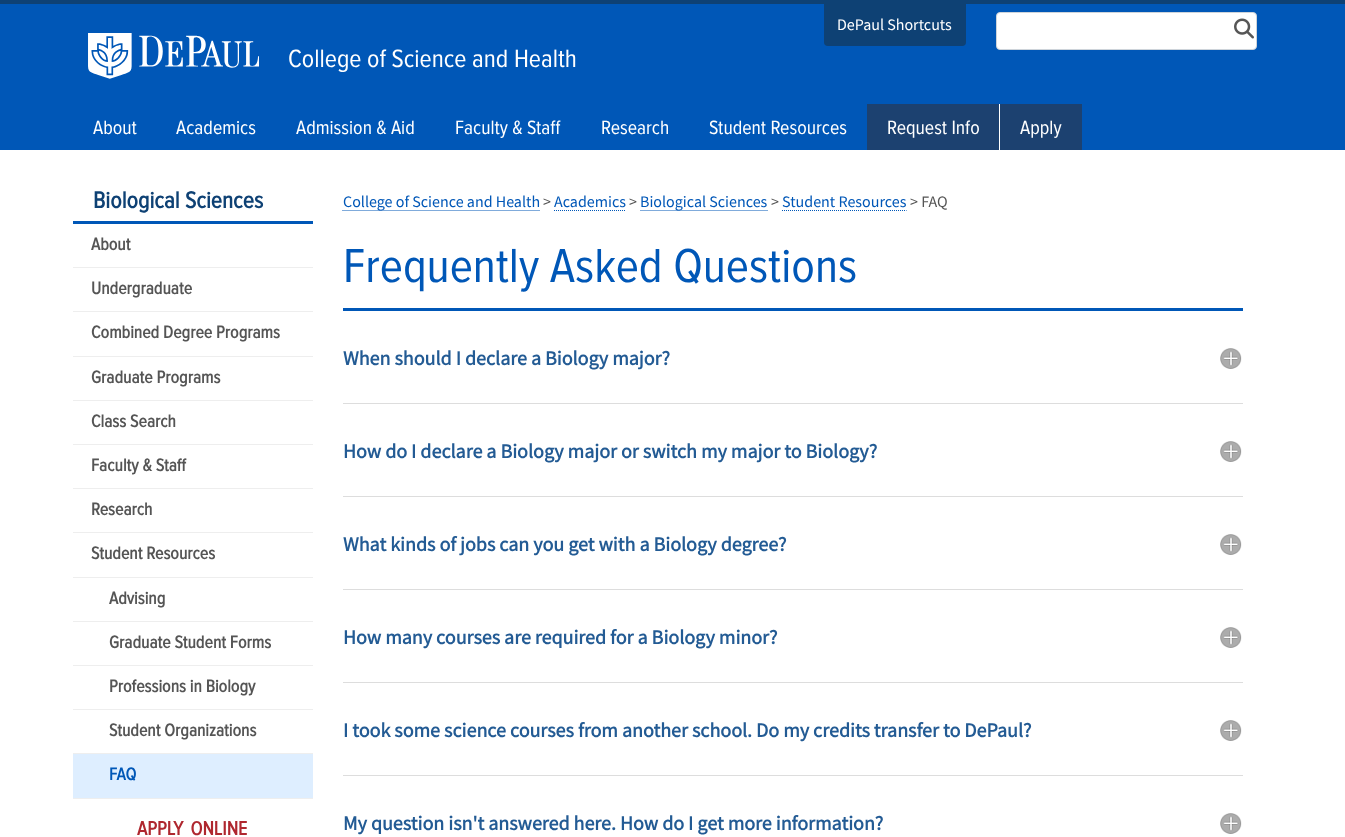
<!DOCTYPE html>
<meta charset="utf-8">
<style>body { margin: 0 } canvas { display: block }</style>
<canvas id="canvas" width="1345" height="837"></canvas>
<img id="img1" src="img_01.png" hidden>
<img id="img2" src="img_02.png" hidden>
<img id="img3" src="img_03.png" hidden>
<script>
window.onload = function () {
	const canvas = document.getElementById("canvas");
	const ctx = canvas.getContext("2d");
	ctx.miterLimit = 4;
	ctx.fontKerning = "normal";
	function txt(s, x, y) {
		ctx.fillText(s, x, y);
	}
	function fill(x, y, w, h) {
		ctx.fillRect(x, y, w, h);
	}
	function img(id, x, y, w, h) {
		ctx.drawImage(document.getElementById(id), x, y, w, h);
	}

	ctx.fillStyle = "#FFFFFF";
	fill(0, 0, 1345, 837);
	ctx.fillStyle = "#0E4174";
	fill(0, 0, 1345, 4);
	ctx.fillStyle = "#0057B7";
	fill(0, 4, 1345, 146);
	ctx.fillStyle = "#0E4174";
	ctx.beginPath();
	ctx.roundRect(824, 4, 142, 42, [0, 0, 4, 4]);
	ctx.fill();
	ctx.fillStyle = "#FFFFFF";
	ctx.beginPath();
	ctx.roundRect(996.5, 12.5, 260, 37, 3.5);
	ctx.fill();
	ctx.strokeStyle = "#CED4DA";
	ctx.stroke();
	img("img1", 1234, 18, 20, 21);
	img("img2", 88, 33, 171, 46);
	ctx.fillStyle = "#1C4170";
	fill(867, 104, 132, 46);
	fill(1000, 104, 82, 46);
	ctx.fillStyle = "#FFFFFF";
	fill(999, 104, 1, 46);
	ctx.fillStyle = "#0057B7";
	fill(73, 221, 240, 3);
	ctx.fillStyle = "#EEEEEE";
	fill(73, 267, 240, 1);
	fill(73, 311, 240, 1);
	fill(73, 356, 240, 1);
	fill(73, 400, 240, 1);
	fill(73, 444, 240, 1);
	fill(73, 488, 240, 1);
	fill(73, 532, 240, 1);
	fill(73, 577, 240, 1);
	fill(73, 621, 240, 1);
	fill(73, 665, 240, 1);
	fill(73, 709, 240, 1);
	fill(73, 753, 240, 1);
	ctx.fillStyle = "#DEEEFF";
	fill(73, 754, 240, 44);
	ctx.fillStyle = "#EEEEEE";
	fill(73, 798, 240, 1);
	ctx.beginPath();
	ctx.moveTo(342.5, 210.5);
	ctx.lineTo(539.5, 210.5);
	ctx.strokeStyle = "#0057B7";
	ctx.setLineDash([1, 1]);
	ctx.stroke();
	ctx.beginPath();
	ctx.moveTo(554, 210.5);
	ctx.lineTo(626, 210.5);
	ctx.stroke();
	ctx.beginPath();
	ctx.moveTo(640.5, 210.5);
	ctx.lineTo(767.5, 210.5);
	ctx.stroke();
	ctx.beginPath();
	ctx.moveTo(782, 210.5);
	ctx.lineTo(906.5, 210.5);
	ctx.stroke();
	ctx.fillStyle = "#0057B7";
	fill(343, 308, 900, 3);
	ctx.fillStyle = "#DDDDDD";
	fill(343, 403, 900, 1);
	img("img3", 1220, 348, 22, 21);
	fill(343, 496, 900, 1);
	img("img3", 1220, 441, 22, 21);
	fill(343, 589, 900, 1);
	img("img3", 1220, 534, 22, 21);
	fill(343, 682, 900, 1);
	img("img3", 1220, 627, 22, 21);
	fill(343, 775, 900, 1);
	img("img3", 1220, 720, 22, 21);
	img("img3", 1220, 813, 22, 21);
	ctx.font = "16px Source Sans Pro";
	ctx.fillStyle = "#FFFFFF";
	txt("DePaul Shortcuts", 837, 30);
	ctx.font = "26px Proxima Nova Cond";
	txt("College of Science and Health", 288, 67);
	ctx.font = "20px Proxima Nova Cond";
	txt("About", 93, 134);
	txt("Academics", 176, 134);
	txt("Admission & Aid", 296, 134);
	txt("Faculty & Staff", 455, 134);
	txt("Research", 601, 134);
	txt("Student Resources", 709, 134);
	txt("Request Info", 887, 134);
	txt("Apply", 1020, 134);
	ctx.font = "bold 24px Proxima Nova Cond";
	ctx.fillStyle = "#0E4174";
	txt("Biological Sciences", 93, 208);
	ctx.font = "bold 18px Proxima Nova Cond";
	ctx.fillStyle = "#555555";
	txt("About", 91, 250);
	txt("Undergraduate", 91, 294);
	txt("Combined Degree Programs", 91, 338);
	txt("Graduate Programs", 91, 383);
	txt("Class Search", 91, 427);
	txt("Faculty & Staff", 91, 471);
	txt("Research", 91, 515);
	txt("Student Resources", 91, 559);
	txt("Advising", 109, 604);
	txt("Graduate Student Forms", 109, 648);
	txt("Professions in Biology", 109, 692);
	txt("Student Organizations", 109, 736);
	ctx.fillStyle = "#0057B7";
	txt("FAQ", 109, 780);
	ctx.wordSpacing = "3px";
	ctx.font = "bold 20px Proxima Nova Cond";
	ctx.fillStyle = "#AF272F";
	txt("APPLY ONLINE", 137, 835);
	ctx.wordSpacing = "0px";
	ctx.font = "16px Source Sans Pro";
	ctx.fillStyle = "#0057B7";
	txt("College of Science and Health", 343, 207);
	ctx.fillStyle = "#555555";
	txt(">", 543, 207);
	ctx.fillStyle = "#0057B7";
	txt("Academics", 554, 207);
	ctx.fillStyle = "#555555";
	txt(">", 629, 207);
	ctx.fillStyle = "#0057B7";
	txt("Biological Sciences", 640, 207);
	ctx.fillStyle = "#555555";
	txt(">", 771, 207);
	ctx.fillStyle = "#0057B7";
	txt("Student Resources", 782, 207);
	ctx.fillStyle = "#555555";
	txt("> FAQ", 910, 207);
	ctx.font = "49.6px Proxima Nova Cond";
	ctx.fillStyle = "#0057B7";
	txt("Frequently Asked Questions", 343, 282);
	ctx.font = "bold 20px Source Sans Pro";
	ctx.fillStyle = "#235B94";
	txt("When should I declare a Biology major?", 343, 365);
	txt("How do I declare a Biology major or switch my major to Biology?", 343, 458);
	txt("What kinds of jobs can you get with a Biology degree?", 343, 551);
	txt("How many courses are required for a Biology minor?", 343, 644);
	txt("I took some science courses from another school. Do my credits transfer to DePaul?", 343, 737);
	txt("My question isn't answered here. How do I get more information?", 343, 830);
};
</script>
